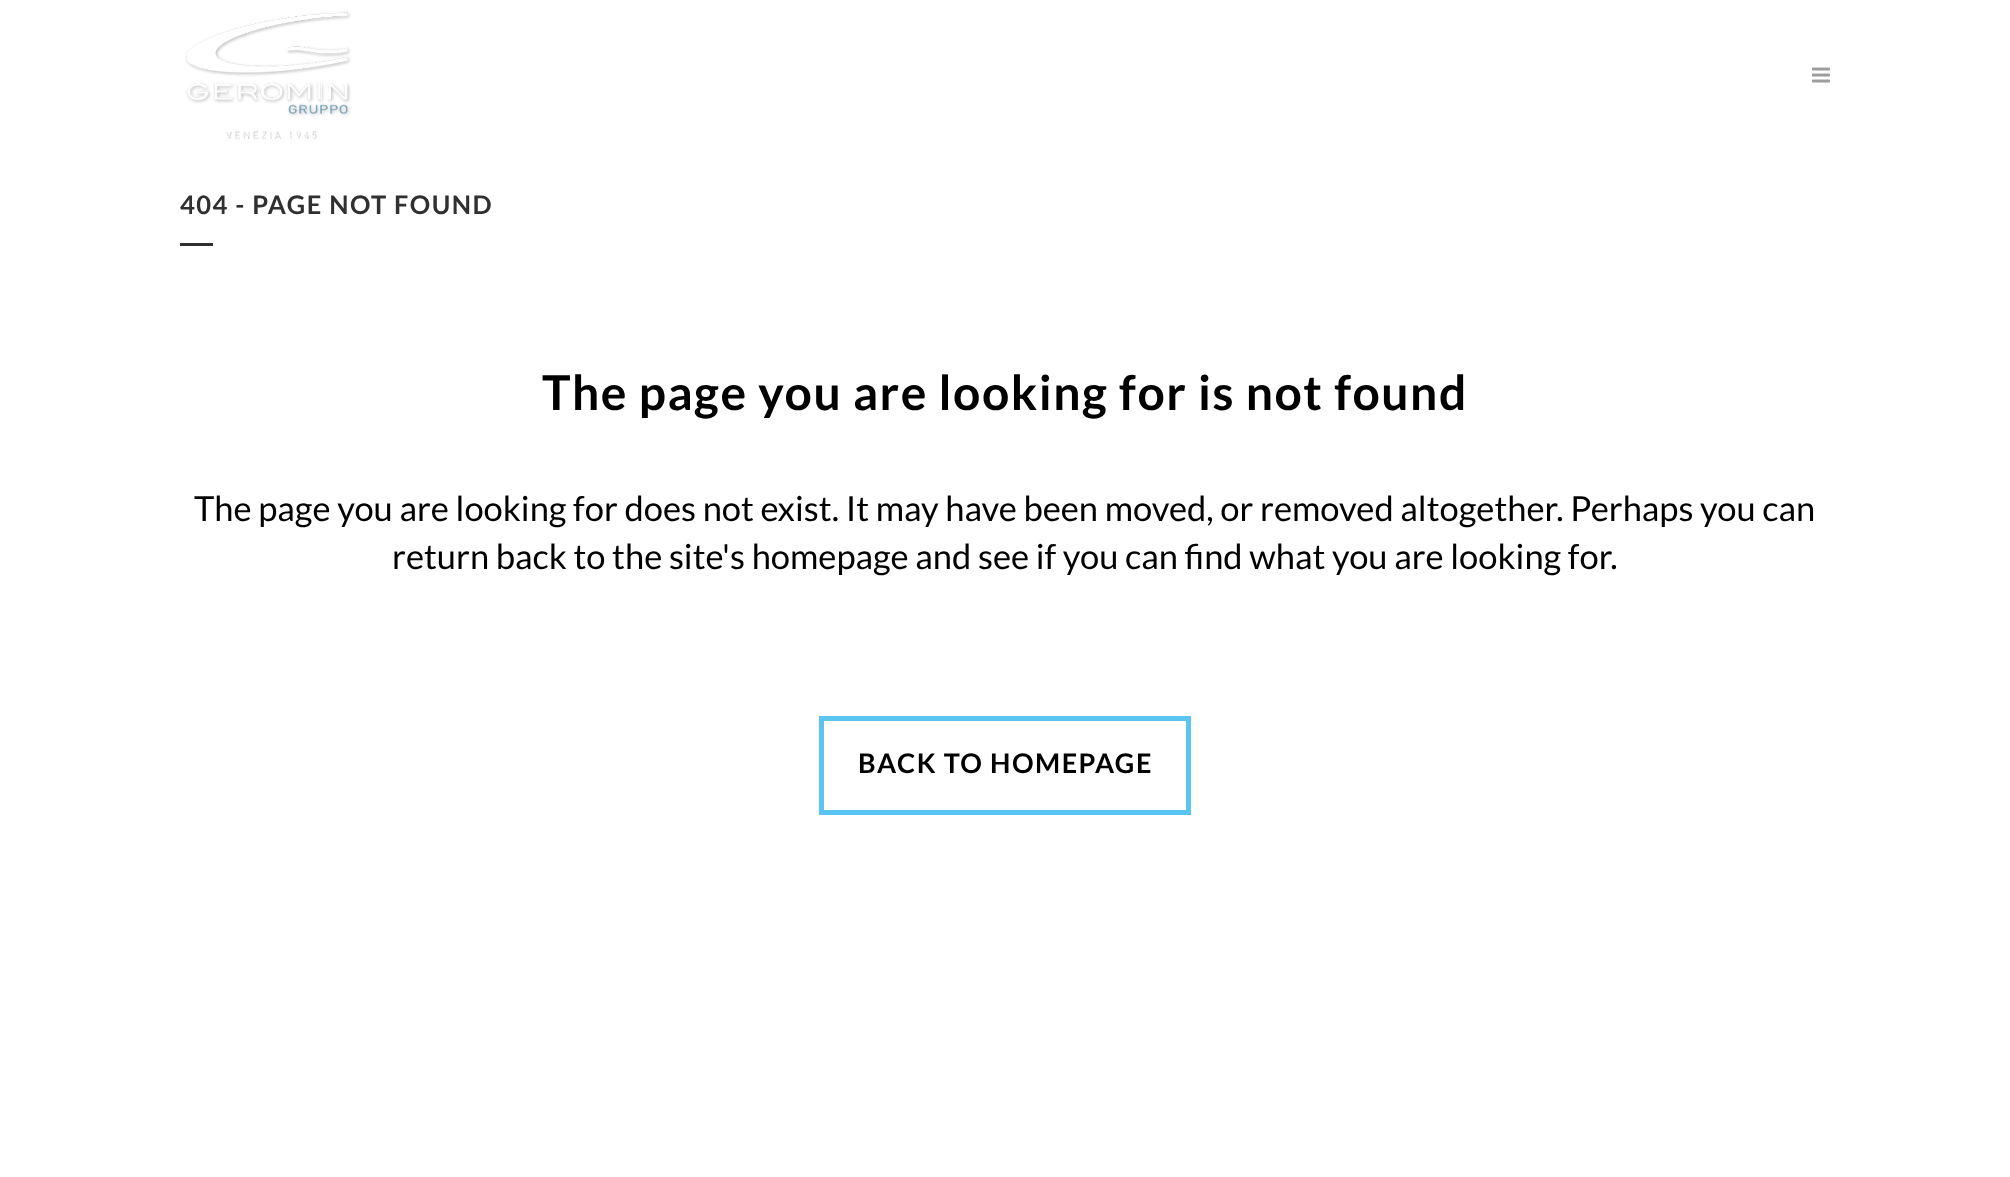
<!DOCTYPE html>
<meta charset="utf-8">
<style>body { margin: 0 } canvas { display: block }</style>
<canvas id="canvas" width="2010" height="1177"></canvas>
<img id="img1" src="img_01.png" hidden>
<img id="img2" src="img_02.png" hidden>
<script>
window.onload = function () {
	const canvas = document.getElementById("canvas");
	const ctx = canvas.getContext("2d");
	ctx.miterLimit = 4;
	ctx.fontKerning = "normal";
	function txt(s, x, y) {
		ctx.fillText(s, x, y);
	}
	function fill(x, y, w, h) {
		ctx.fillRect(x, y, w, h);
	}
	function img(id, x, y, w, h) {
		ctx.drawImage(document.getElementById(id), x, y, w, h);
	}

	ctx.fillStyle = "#FFFFFF";
	fill(0, 0, 2010, 1177);
	img("img1", 185, 11, 166, 129);
	img("img2", 1812, 67, 18, 16);
	ctx.fillStyle = "#303030";
	fill(180, 243, 33, 3);
	ctx.strokeStyle = "#5BC5F2";
	ctx.lineWidth = 5;
	ctx.strokeRect(821.5, 718.5, 367, 94);
	ctx.letterSpacing = "1.5px";
	ctx.font = "bold 25.5px Lato";
	txt("404 - PAGE NOT FOUND", 180, 214);
	ctx.font = "bold 48px Lato";
	ctx.fillStyle = "#000000";
	txt("The page you are looking for is not found", 542, 410);
	ctx.letterSpacing = "0px";
	ctx.font = "34.5px Lato";
	txt("The page you are looking for does not exist. It may have been moved, or removed altogether. Perhaps you can", 194, 521);
	txt("return back to the site's homepage and see if you can find what you are looking for.", 392, 569);
	ctx.letterSpacing = "1.5px";
	ctx.font = "bold 27px Lato";
	txt("BACK TO HOMEPAGE", 858, 773);
};
</script>
